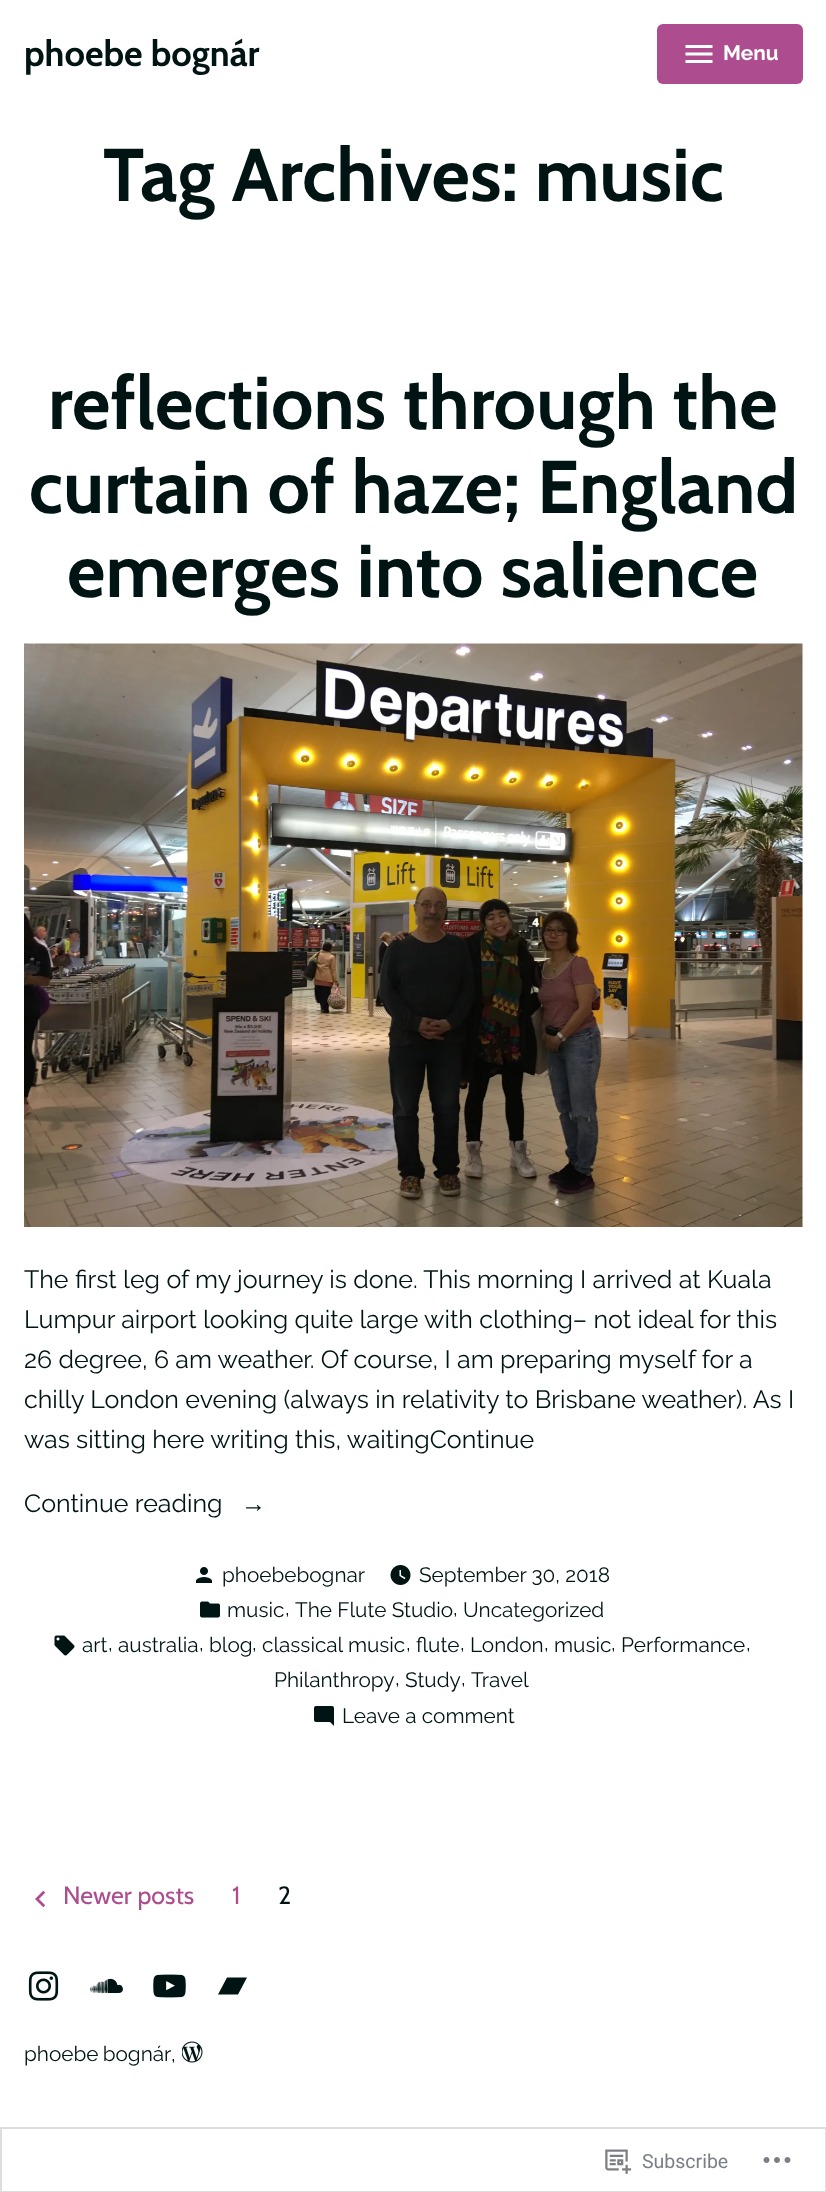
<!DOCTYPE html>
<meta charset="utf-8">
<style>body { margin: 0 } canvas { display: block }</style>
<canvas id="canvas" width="826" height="2192"></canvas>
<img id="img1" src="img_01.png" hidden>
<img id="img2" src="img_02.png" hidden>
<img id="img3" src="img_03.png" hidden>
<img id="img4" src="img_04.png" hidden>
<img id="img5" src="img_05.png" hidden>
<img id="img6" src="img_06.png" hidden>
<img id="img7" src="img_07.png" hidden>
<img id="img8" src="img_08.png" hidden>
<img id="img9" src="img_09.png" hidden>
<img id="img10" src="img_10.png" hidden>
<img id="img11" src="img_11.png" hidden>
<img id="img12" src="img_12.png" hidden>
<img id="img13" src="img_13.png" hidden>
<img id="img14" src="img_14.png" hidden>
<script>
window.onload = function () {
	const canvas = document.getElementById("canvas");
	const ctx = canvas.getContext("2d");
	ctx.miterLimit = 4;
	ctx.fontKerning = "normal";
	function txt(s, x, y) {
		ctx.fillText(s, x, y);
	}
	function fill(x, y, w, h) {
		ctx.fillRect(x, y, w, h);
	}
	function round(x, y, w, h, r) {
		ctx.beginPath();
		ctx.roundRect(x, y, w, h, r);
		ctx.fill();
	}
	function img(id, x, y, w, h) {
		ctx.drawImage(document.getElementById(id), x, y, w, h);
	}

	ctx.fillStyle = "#FFFFFF";
	fill(0, 0, 826, 2192);
	ctx.fillStyle = "#AD4C8E";
	round(657, 24, 146, 60, 6);
	img("img1", 685, 45, 28, 18);
	img("img2", 24, 643, 779, 584);
	img("img3", 196, 1567, 16, 16);
	img("img4", 390, 1565, 21, 20);
	img("img5", 200, 1601, 20, 17);
	img("img6", 54, 1635, 21, 21);
	img("img7", 314, 1706, 20, 20);
	img("img8", 35, 1890, 11, 18);
	img("img9", 28, 1971, 31, 30);
	img("img10", 90, 1978, 33, 16);
	img("img11", 153, 1974, 33, 24);
	ctx.fillStyle = "#001414";
	ctx.beginPath();
	ctx.moveTo(238, 1994.5);
	ctx.lineTo(218, 1994.5);
	ctx.lineTo(227, 1977.5);
	ctx.lineTo(247, 1977.5);
	ctx.lineTo(238, 1994.5);
	ctx.fill();
	img("img12", 182, 2041, 21, 22);
	ctx.strokeStyle = "#DDDDDF";
	ctx.lineWidth = 2;
	ctx.strokeRect(1, 2128, 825, 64);
	img("img13", 605, 2149, 27, 25);
	img("img14", 763, 2157, 28, 6);
	ctx.font = "bold 36px Cabin";
	txt("phoebe bognár", 24, 66);
	ctx.font = "bold 20.75px Raleway";
	ctx.fillStyle = "#FFFFFF";
	txt("Menu", 723, 60);
	ctx.font = "bold 74.6px Cabin";
	ctx.fillStyle = "#001414";
	txt("Tag Archives: music", 103, 201);
	txt("reflections through the", 48, 429);
	txt("curtain of haze; England", 29, 513);
	txt("emerges into salience", 67, 597);
	ctx.font = "25px Raleway";
	txt("The first leg of my journey is done. This morning I arrived at Kuala", 24, 1288);
	txt("Lumpur airport looking quite large with clothing– not ideal for this", 24, 1328);
	txt("26 degree, 6 am weather. Of course, I am preparing myself for a", 24, 1368);
	txt("chilly London evening (always in relativity to Brisbane weather). As I", 24, 1408);
	txt("was sitting here writing this, waitingContinue", 24, 1448);
	txt("Continue reading", 24, 1512);
	ctx.font = "25px Liberation Serif";
	txt("→", 241, 1512);
	ctx.font = "20.75px Raleway";
	txt("phoebebognar", 222, 1582);
	txt("September 30, 2018", 419, 1582);
	txt("music", 227, 1617);
	txt(",", 285, 1615);
	txt("The Flute Studio", 295, 1617);
	txt(",", 453, 1615);
	txt("Uncategorized", 463, 1617);
	txt("art", 82, 1652);
	txt(",", 108, 1650);
	txt("australia", 118, 1652);
	txt(",", 199, 1650);
	txt("blog", 209, 1652);
	txt(",", 252, 1650);
	txt("classical music", 262, 1652);
	txt(",", 406, 1650);
	txt("flute", 416, 1652);
	txt(",", 460, 1650);
	txt("London", 470, 1652);
	txt(",", 544, 1650);
	txt("music", 554, 1652);
	txt(",", 611, 1650);
	txt("Performance", 621, 1652);
	txt(",", 746, 1650);
	txt("Philanthropy", 274, 1687);
	txt(",", 395, 1685);
	txt("Study", 405, 1687);
	txt(",", 461, 1685);
	txt("Travel", 471, 1687);
	txt("Leave a comment", 342, 1723);
	ctx.font = "25px Cabin";
	ctx.fillStyle = "#AD4C8E";
	txt("Newer posts", 63, 1904);
	txt("1", 232, 1904);
	ctx.fillStyle = "#001414";
	txt("2", 278, 1904);
	ctx.wordSpacing = "-1px";
	ctx.font = "20.75px Raleway";
	txt("phoebe bognár", 24, 2061);
	ctx.wordSpacing = "0px";
	txt(",", 171, 2061);
	ctx.font = "19.5px Roboto";
	ctx.fillStyle = "#7B7F85";
	txt("Subscribe", 642, 2168);
};
</script>
